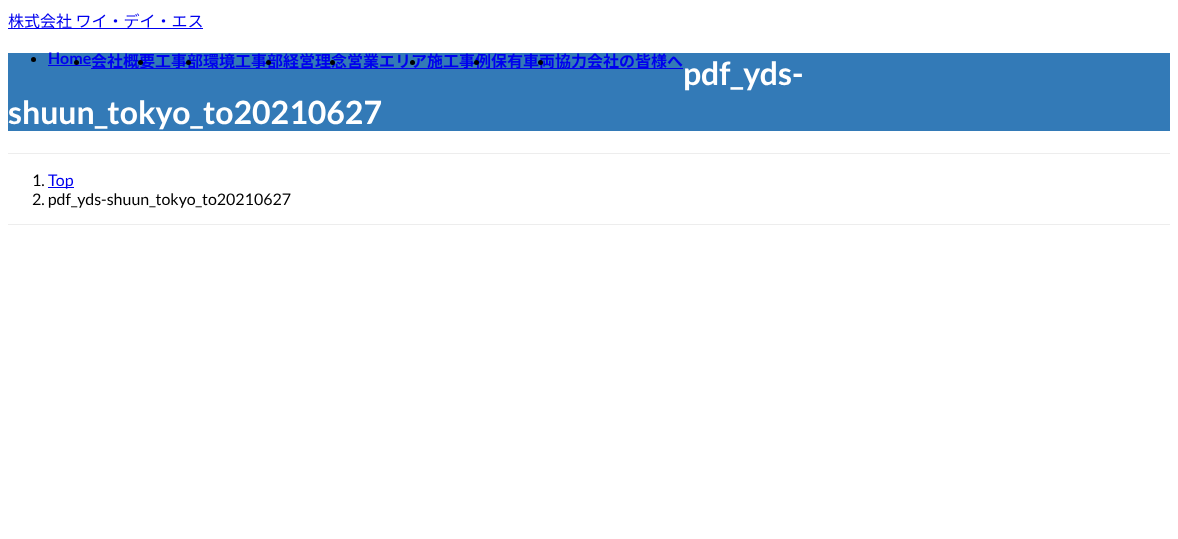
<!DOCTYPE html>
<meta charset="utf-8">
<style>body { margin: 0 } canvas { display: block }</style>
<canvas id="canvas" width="1178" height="539"></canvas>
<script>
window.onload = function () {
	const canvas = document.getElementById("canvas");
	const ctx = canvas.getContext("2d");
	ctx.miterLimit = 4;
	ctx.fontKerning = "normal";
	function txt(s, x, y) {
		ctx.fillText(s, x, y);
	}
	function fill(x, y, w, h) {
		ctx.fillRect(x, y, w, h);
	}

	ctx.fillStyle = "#FFFFFF";
	fill(0, 0, 1178, 539);
	ctx.fillStyle = "#0000EE";
	fill(8, 28, 195, 1);
	ctx.fillStyle = "#337AB7";
	fill(8, 53, 1162, 78);
	ctx.fillStyle = "#000000";
	ctx.beginPath();
	ctx.arc(33.5, 59.5, 2.5, 0, Math.PI * 2);
	ctx.fill();
	ctx.fillStyle = "#0000EE";
	fill(48, 65, 43, 1);
	fill(91, 68, 592, 1);
	ctx.fillStyle = "#EDEDED";
	fill(8, 153, 1162, 1);
	fill(8, 224, 1162, 1);
	ctx.fillStyle = "#0000EE";
	fill(48, 187, 26, 1);
	ctx.font = "16px Noto Sans JP";
	txt("株式会社 ワイ・デイ・エス", 8, 27);
	ctx.font = "bold 16px Lato";
	txt("Home", 48, 64);
	ctx.fillStyle = "#000000";
	ctx.beginPath();
	ctx.arc(76.5, 62.5, 2.5, 0, Math.PI * 2);
	ctx.fill();
	ctx.font = "bold 16px Noto Sans JP";
	ctx.fillStyle = "#0000EE";
	txt("会社概要工事部環境工事部経営理念営業エリア施工事例保有車両協力会社の皆様へ", 91, 67);
	ctx.fillStyle = "#000000";
	ctx.beginPath();
	ctx.arc(140.5, 62.5, 2.5, 0, Math.PI * 2);
	ctx.fill();
	ctx.beginPath();
	ctx.arc(188.5, 62.5, 2.5, 0, Math.PI * 2);
	ctx.fill();
	ctx.beginPath();
	ctx.arc(268.5, 62.5, 2.5, 0, Math.PI * 2);
	ctx.fill();
	ctx.beginPath();
	ctx.arc(332.5, 62.5, 2.5, 0, Math.PI * 2);
	ctx.fill();
	ctx.beginPath();
	ctx.arc(412.5, 62.5, 2.5, 0, Math.PI * 2);
	ctx.fill();
	ctx.beginPath();
	ctx.arc(476.5, 62.5, 2.5, 0, Math.PI * 2);
	ctx.fill();
	ctx.beginPath();
	ctx.arc(540.5, 62.5, 2.5, 0, Math.PI * 2);
	ctx.fill();
	ctx.font = "bold 32px Lato";
	ctx.fillStyle = "#FFFFFF";
	txt("pdf_yds-", 683, 85);
	txt("shuun_tokyo_to20210627", 8, 124);
	ctx.font = "16px Lato";
	ctx.fillStyle = "#000000";
	txt("1.", 32, 186);
	ctx.fillStyle = "#0000EE";
	txt("Top", 48, 186);
	ctx.fillStyle = "#000000";
	txt("2. pdf_yds-shuun_tokyo_to20210627", 32, 205);
};
</script>
